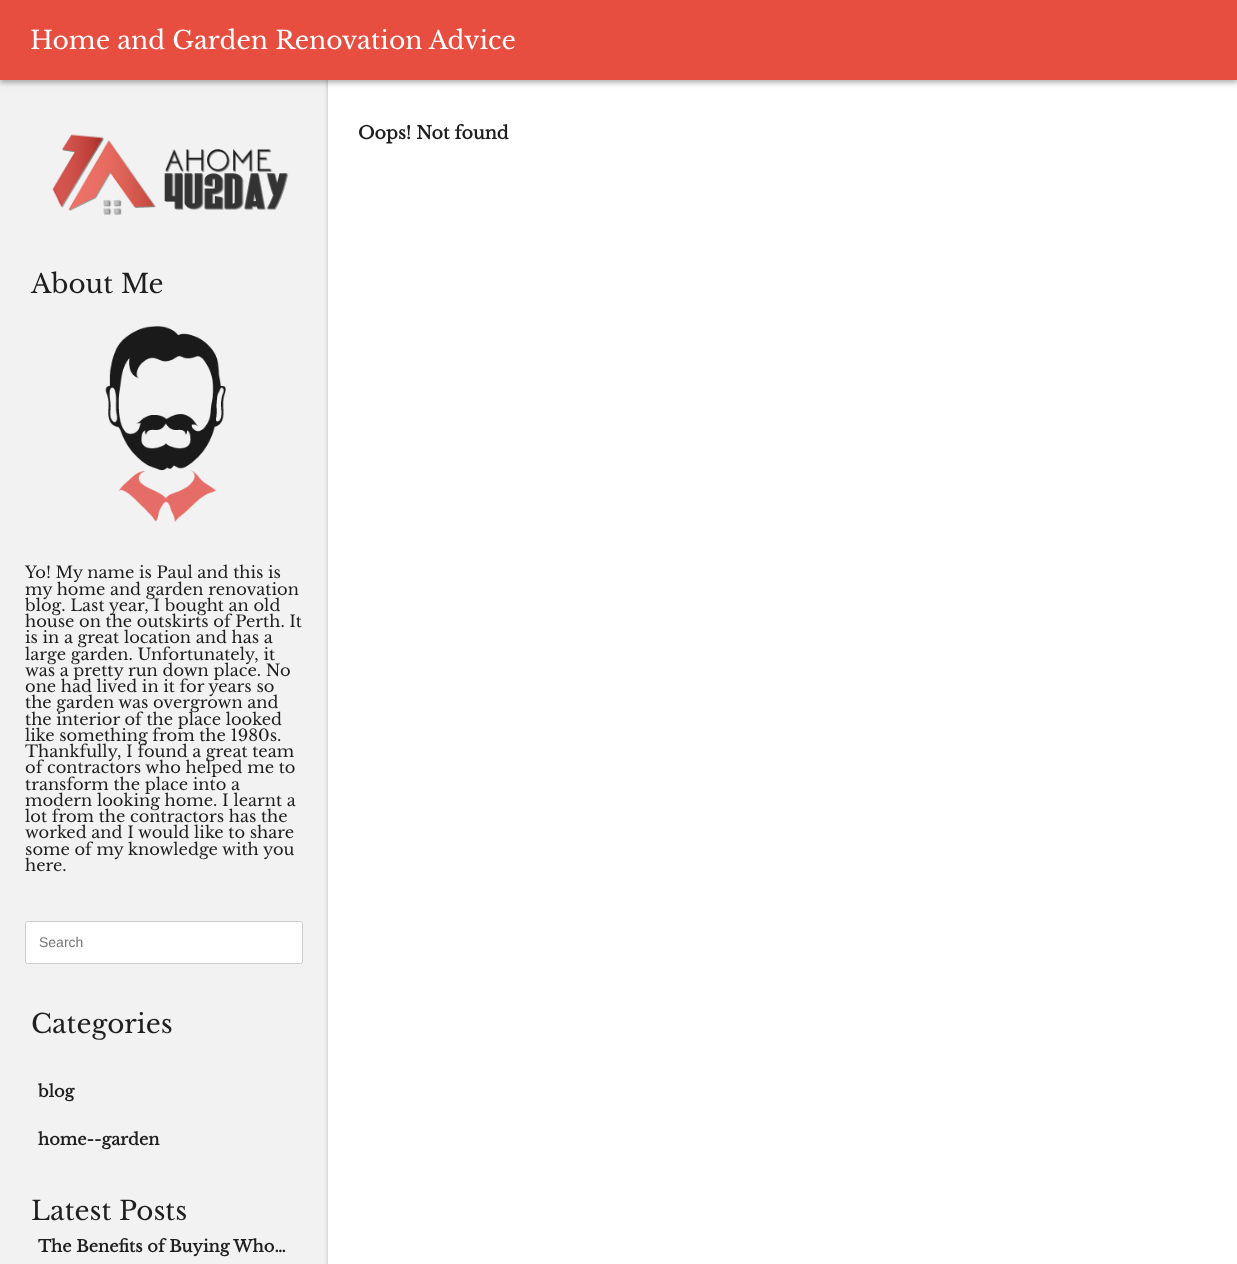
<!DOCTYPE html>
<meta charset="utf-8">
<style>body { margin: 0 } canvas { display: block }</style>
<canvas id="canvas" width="1237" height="1264"></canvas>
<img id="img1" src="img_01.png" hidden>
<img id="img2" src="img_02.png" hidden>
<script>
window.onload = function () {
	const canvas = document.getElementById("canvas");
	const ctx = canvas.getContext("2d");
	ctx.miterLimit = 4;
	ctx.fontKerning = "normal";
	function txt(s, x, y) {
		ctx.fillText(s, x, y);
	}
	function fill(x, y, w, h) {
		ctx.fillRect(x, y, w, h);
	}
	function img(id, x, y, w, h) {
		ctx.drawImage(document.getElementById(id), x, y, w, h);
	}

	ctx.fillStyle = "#F2F2F2";
	fill(0, 0, 1237, 1264);
	ctx.fillStyle = "rgba(0, 0, 0, 0.24)";
	ctx.filter = "blur(2px)";
	ctx.beginPath();
	ctx.rect(328, 3, 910, 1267);
	ctx.fill();
	ctx.filter = "none";
	ctx.fillStyle = "#FFFFFF";
	fill(328, 80, 909, 1184);
	ctx.fillStyle = "rgba(0, 0, 0, 0.05)";
	ctx.filter = "blur(5px)";
	ctx.beginPath();
	ctx.rect(0, 4, 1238, 80);
	ctx.fill();
	ctx.filter = "none";
	ctx.fillStyle = "rgba(0, 0, 0, 0.24)";
	ctx.filter = "blur(2px)";
	ctx.beginPath();
	ctx.rect(0, 3, 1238, 80);
	ctx.fill();
	ctx.filter = "none";
	ctx.fillStyle = "#E84E40";
	fill(0, 0, 1237, 80);
	img("img1", 52, 134, 237, 81);
	img("img2", 105, 325, 121, 197);
	ctx.fillStyle = "#FFFFFF";
	ctx.beginPath();
	ctx.roundRect(25.5, 921.5, 277, 42, 2);
	ctx.fill();
	ctx.strokeStyle = "#CCCCCC";
	ctx.stroke();
	ctx.font = "25px Libre Baskerville";
	txt("Home and Garden Renovation Advice", 30, 49);
	ctx.font = "bold 17.5px Libre Baskerville";
	ctx.fillStyle = "#1F1F1F";
	txt("Oops! Not found", 358, 139);
	ctx.font = "26.25px Libre Baskerville";
	txt("About Me", 31, 293);
	ctx.font = "16.25px Libre Baskerville";
	txt("Yo! My name is Paul and this is", 25, 578);
	txt("my home and garden renovation", 25, 595);
	txt("blog. Last year, I bought an old", 25, 611);
	txt("house on the outskirts of Perth. It", 25, 627);
	txt("is in a great location and has a", 25, 643);
	txt("large garden. Unfortunately, it", 25, 660);
	txt("was a pretty run down place. No", 25, 676);
	txt("one had lived in it for years so", 25, 692);
	txt("the garden was overgrown and", 25, 708);
	txt("the interior of the place looked", 25, 725);
	txt("like something from the 1980s.", 25, 741);
	txt("Thankfully, I found a great team", 25, 757);
	txt("of contractors who helped me to", 25, 773);
	txt("transform the place into a", 25, 790);
	txt("modern looking home. I learnt a", 25, 806);
	txt("lot from the contractors has the", 25, 822);
	txt("worked and I would like to share", 25, 838);
	txt("some of my knowledge with you", 25, 855);
	txt("here.", 25, 871);
	ctx.font = "14px Liberation Sans";
	ctx.fillStyle = "#757575";
	txt("Search", 39, 947);
	ctx.font = "26.25px Libre Baskerville";
	ctx.fillStyle = "#1F1F1F";
	txt("Categories", 31, 1033);
	ctx.font = "bold 16.25px Libre Baskerville";
	txt("blog", 38, 1097);
	txt("home--garden", 38, 1145);
	ctx.font = "26.25px Libre Baskerville";
	txt("Latest Posts", 31, 1220);
	ctx.font = "bold 16.25px Libre Baskerville";
	txt("The Benefits of Buying Who…", 38, 1252);
};
</script>
